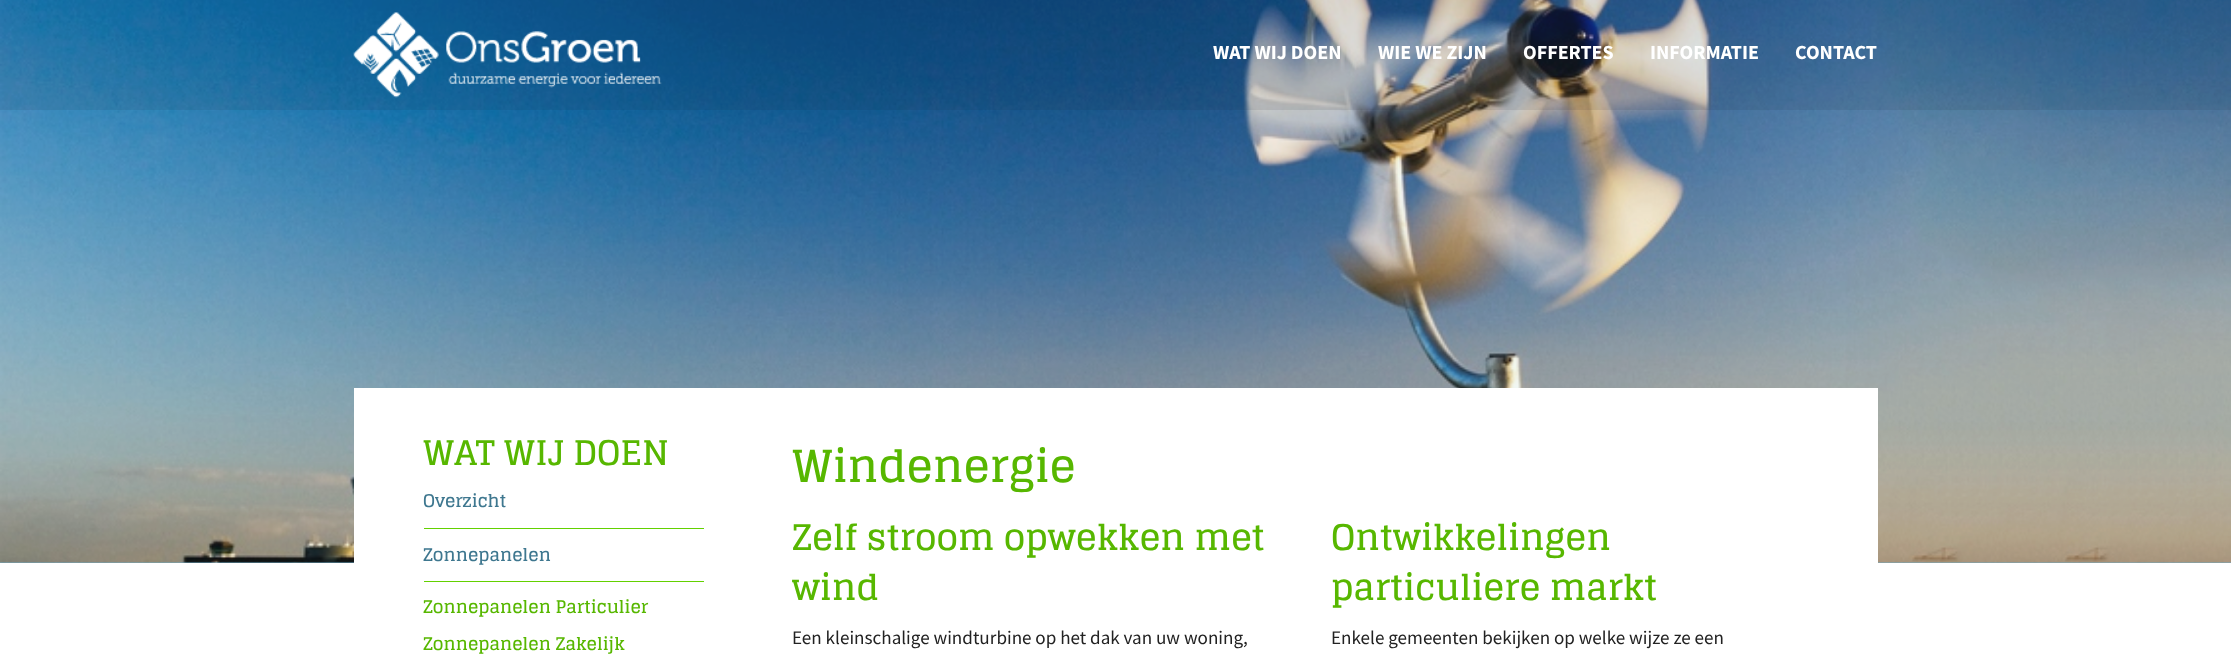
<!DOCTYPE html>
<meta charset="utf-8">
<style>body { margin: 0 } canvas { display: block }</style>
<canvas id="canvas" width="2231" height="658"></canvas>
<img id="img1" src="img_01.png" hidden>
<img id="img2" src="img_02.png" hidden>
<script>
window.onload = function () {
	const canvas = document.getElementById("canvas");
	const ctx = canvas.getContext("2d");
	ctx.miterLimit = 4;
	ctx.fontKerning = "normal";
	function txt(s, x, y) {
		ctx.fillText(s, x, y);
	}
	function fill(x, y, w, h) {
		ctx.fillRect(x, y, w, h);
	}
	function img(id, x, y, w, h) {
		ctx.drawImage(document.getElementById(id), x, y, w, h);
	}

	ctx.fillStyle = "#FFFFFF";
	fill(0, 0, 2231, 658);
	ctx.fillStyle = "#71AAC2";
	fill(0, 0, 2231, 563);
	img("img1", 0, 0, 2231, 563);
	ctx.fillStyle = "rgba(30, 33, 38, 0.1)";
	fill(0, 0, 2231, 110);
	img("img2", 353, 12, 309, 86);
	ctx.fillStyle = "#FFFFFF";
	fill(354, 388, 1524, 175);
	ctx.fillStyle = "#63D100";
	fill(424, 528, 280, 1);
	fill(424, 581, 280, 1);
	ctx.font = "bold 20px Source Sans Pro";
	ctx.fillStyle = "#FFFFFF";
	txt("WAT WIJ DOEN", 1213, 59);
	txt("WIE WE ZIJN", 1378, 59);
	txt("OFFERTES", 1523, 59);
	txt("INFORMATIE", 1650, 59);
	txt("CONTACT", 1795, 59);
	ctx.font = "bold 34px Glegoo";
	ctx.fillStyle = "#57B700";
	txt("WAT WIJ DOEN", 423, 465);
	ctx.font = "bold 17.5px Glegoo";
	ctx.fillStyle = "#3E778F";
	txt("Overzicht", 423, 507);
	txt("Zonnepanelen", 423, 561);
	ctx.fillStyle = "#57B700";
	txt("Zonnepanelen Particulier", 423, 613);
	txt("Zonnepanelen Zakelijk", 423, 650);
	ctx.font = "bold 44.25px Glegoo";
	txt("Windenergie", 792, 482);
	ctx.font = "bold 35.4px Glegoo";
	txt("Zelf stroom opwekken met", 792, 550);
	txt("wind", 792, 600);
	ctx.font = "19.1px Source Sans Pro";
	ctx.fillStyle = "#222222";
	txt("Een kleinschalige windturbine op het dak van uw woning,", 792, 644);
	ctx.font = "bold 35.4px Glegoo";
	ctx.fillStyle = "#57B700";
	txt("Ontwikkelingen", 1331, 550);
	txt("particuliere markt", 1331, 600);
	ctx.font = "19.1px Source Sans Pro";
	ctx.fillStyle = "#222222";
	txt("Enkele gemeenten bekijken op welke wijze ze een", 1331, 644);
};
</script>
